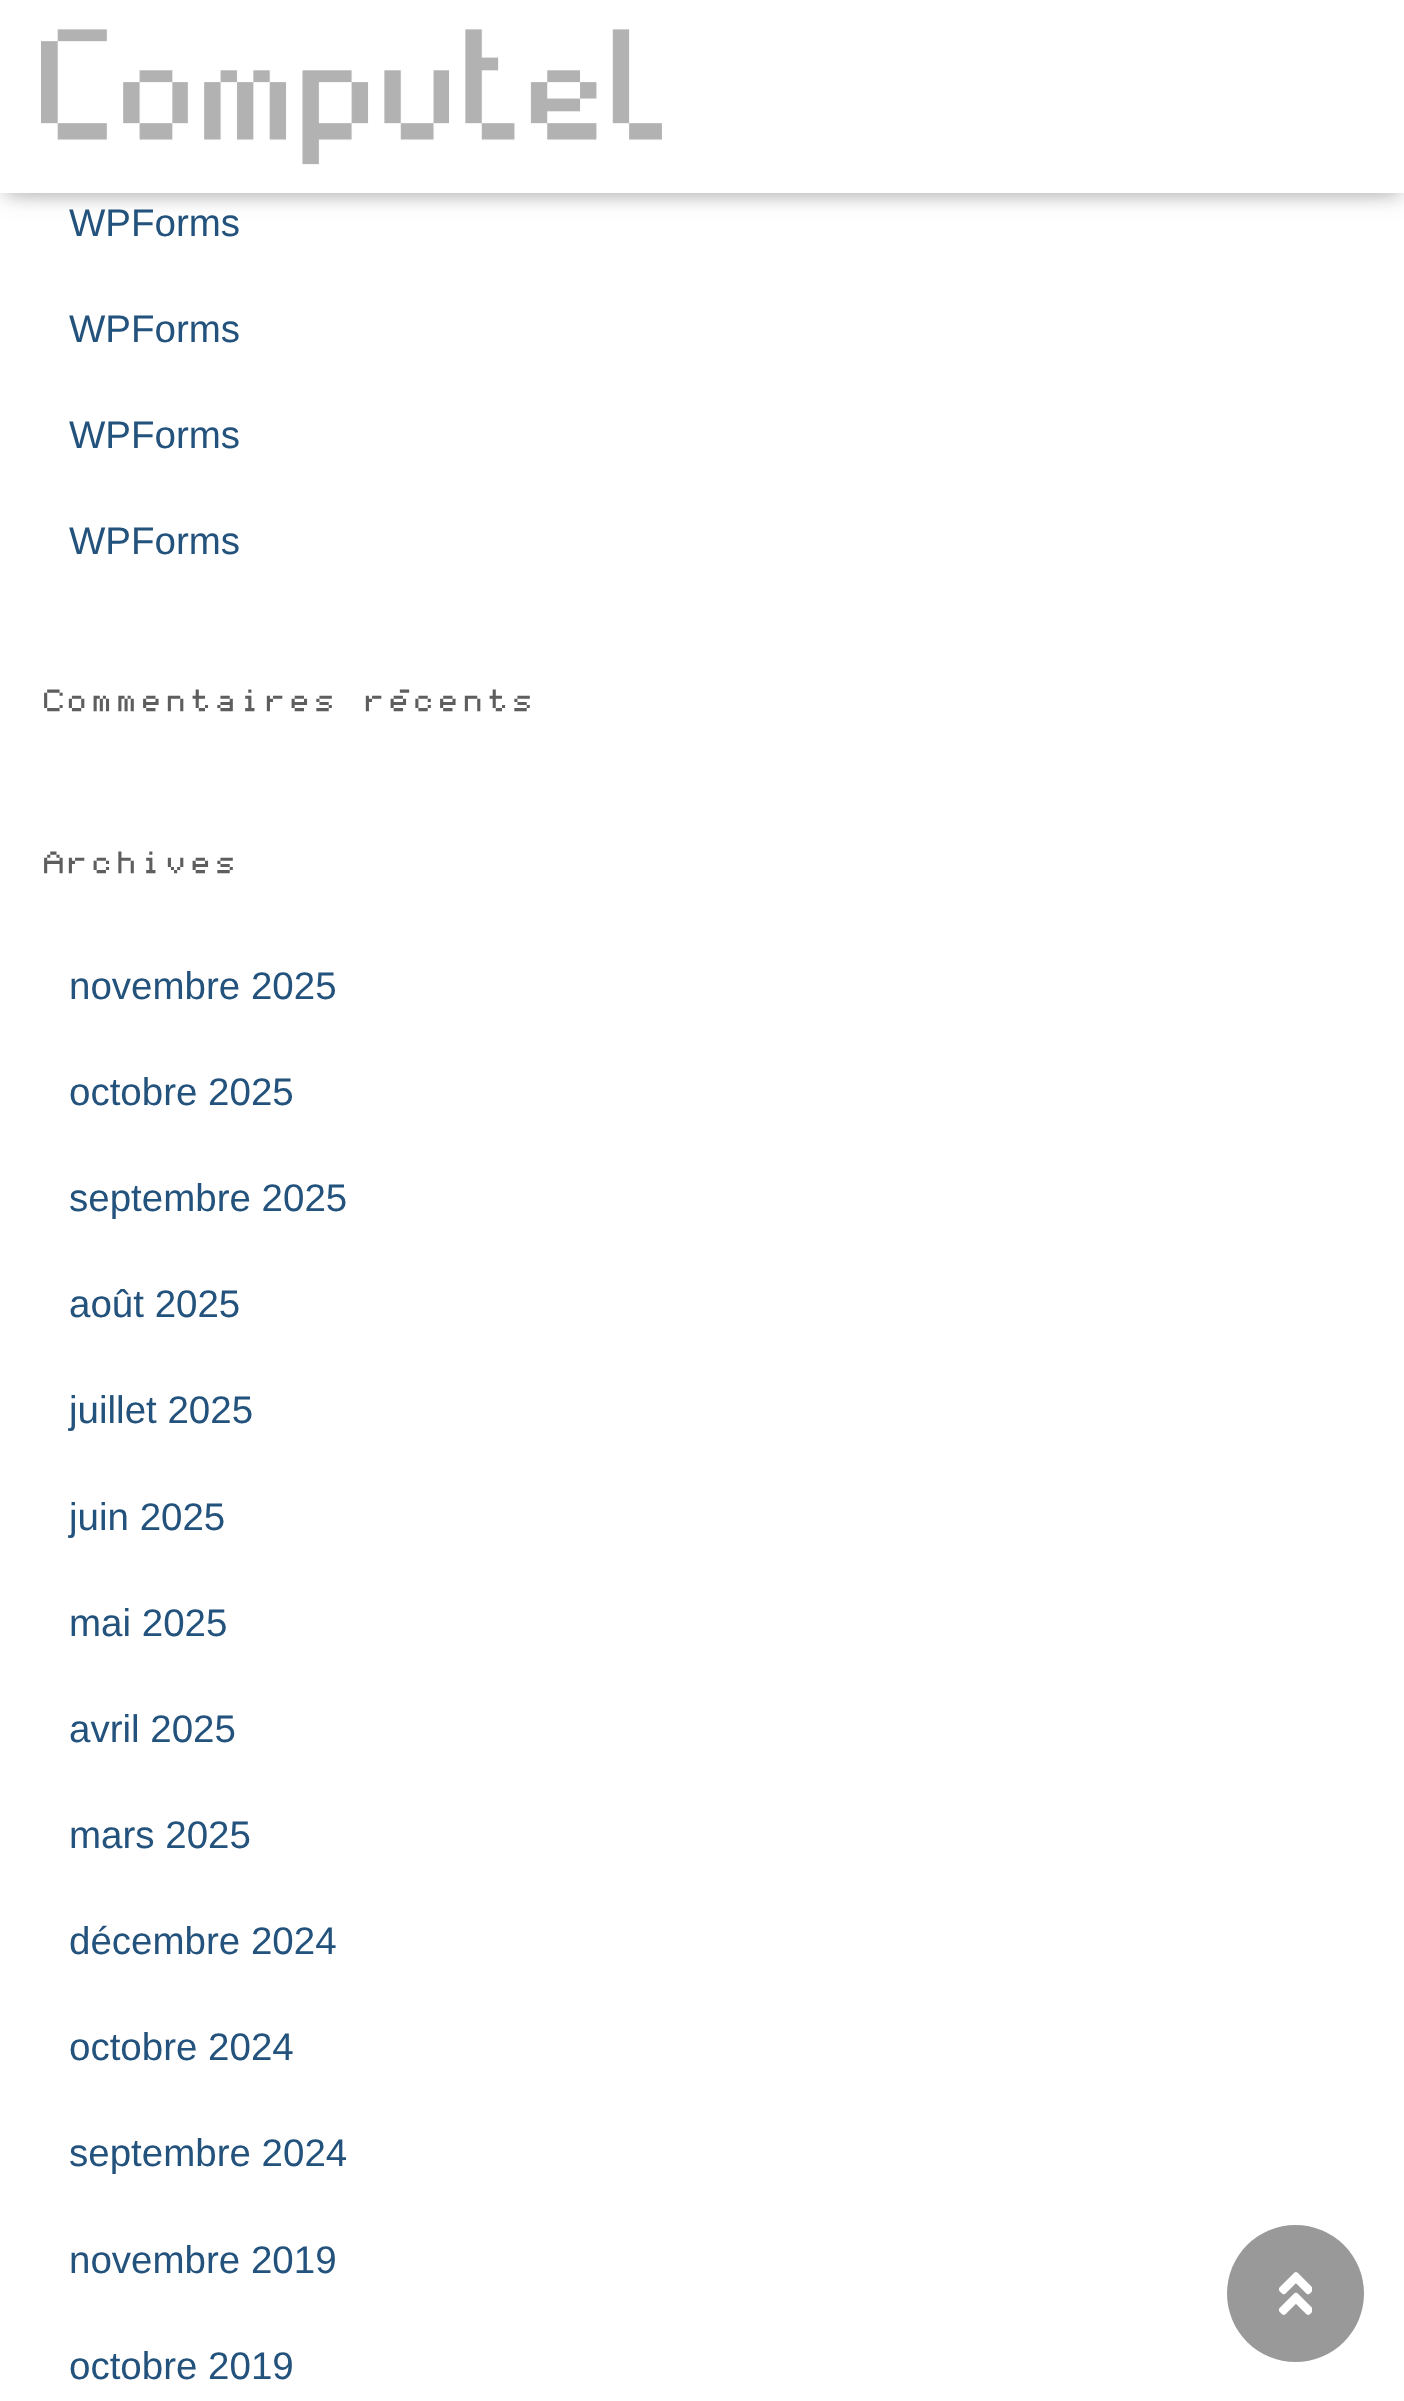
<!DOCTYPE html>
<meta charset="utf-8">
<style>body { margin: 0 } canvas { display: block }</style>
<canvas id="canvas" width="1404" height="2401"></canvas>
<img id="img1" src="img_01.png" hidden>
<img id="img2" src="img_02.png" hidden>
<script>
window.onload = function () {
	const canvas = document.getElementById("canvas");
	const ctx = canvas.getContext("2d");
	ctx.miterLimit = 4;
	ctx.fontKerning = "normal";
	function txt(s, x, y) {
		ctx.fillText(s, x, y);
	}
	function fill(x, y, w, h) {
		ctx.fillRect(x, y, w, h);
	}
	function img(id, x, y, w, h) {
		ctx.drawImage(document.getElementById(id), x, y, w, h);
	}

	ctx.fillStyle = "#FFFFFF";
	fill(0, 0, 1404, 2401);
	ctx.fillStyle = "rgba(0, 0, 0, 0.1)";
	ctx.filter = "blur(7px)";
	ctx.beginPath();
	ctx.rect(6, 17, 1394, 181);
	ctx.fill();
	ctx.filter = "none";
	ctx.fillStyle = "rgba(0, 0, 0, 0.12)";
	ctx.filter = "blur(14px)";
	ctx.beginPath();
	ctx.rect(0, 3, 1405, 192);
	ctx.fill();
	ctx.filter = "none";
	ctx.fillStyle = "rgba(0, 0, 0, 0.42)";
	ctx.filter = "blur(14px)";
	ctx.beginPath();
	ctx.rect(17, 19, 1372, 160);
	ctx.fill();
	ctx.filter = "none";
	ctx.fillStyle = "#FFFFFF";
	fill(0, 0, 1404, 193);
	img("img1", 41, 29, 621, 136);
	ctx.fillStyle = "#999999";
	ctx.beginPath();
	ctx.arc(1295.5, 2293.5, 68.5, 0, Math.PI * 2);
	ctx.fill();
	img("img2", 1279, 2272, 33, 43);
	ctx.font = "38.5px Liberation Sans";
	ctx.fillStyle = "#23527C";
	txt("WPForms", 69, 236);
	txt("WPForms", 69, 342);
	txt("WPForms", 69, 448);
	txt("WPForms", 69, 554);
	ctx.font = "bold 49.5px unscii";
	ctx.fillStyle = "#5E5E5E";
	txt("Commentaires récents", 41, 729);
	txt("Archives", 41, 891);
	ctx.font = "38.5px Liberation Sans";
	ctx.fillStyle = "#23527C";
	txt("novembre 2025", 69, 999);
	txt("octobre 2025", 69, 1105);
	txt("septembre 2025", 69, 1211);
	txt("août 2025", 69, 1317);
	txt("juillet 2025", 69, 1423);
	txt("juin 2025", 69, 1530);
	txt("mai 2025", 69, 1636);
	txt("avril 2025", 69, 1742);
	txt("mars 2025", 69, 1848);
	txt("décembre 2024", 69, 1954);
	txt("octobre 2024", 69, 2060);
	txt("septembre 2024", 69, 2166);
	txt("novembre 2019", 69, 2273);
	txt("octobre 2019", 69, 2379);
};
</script>
